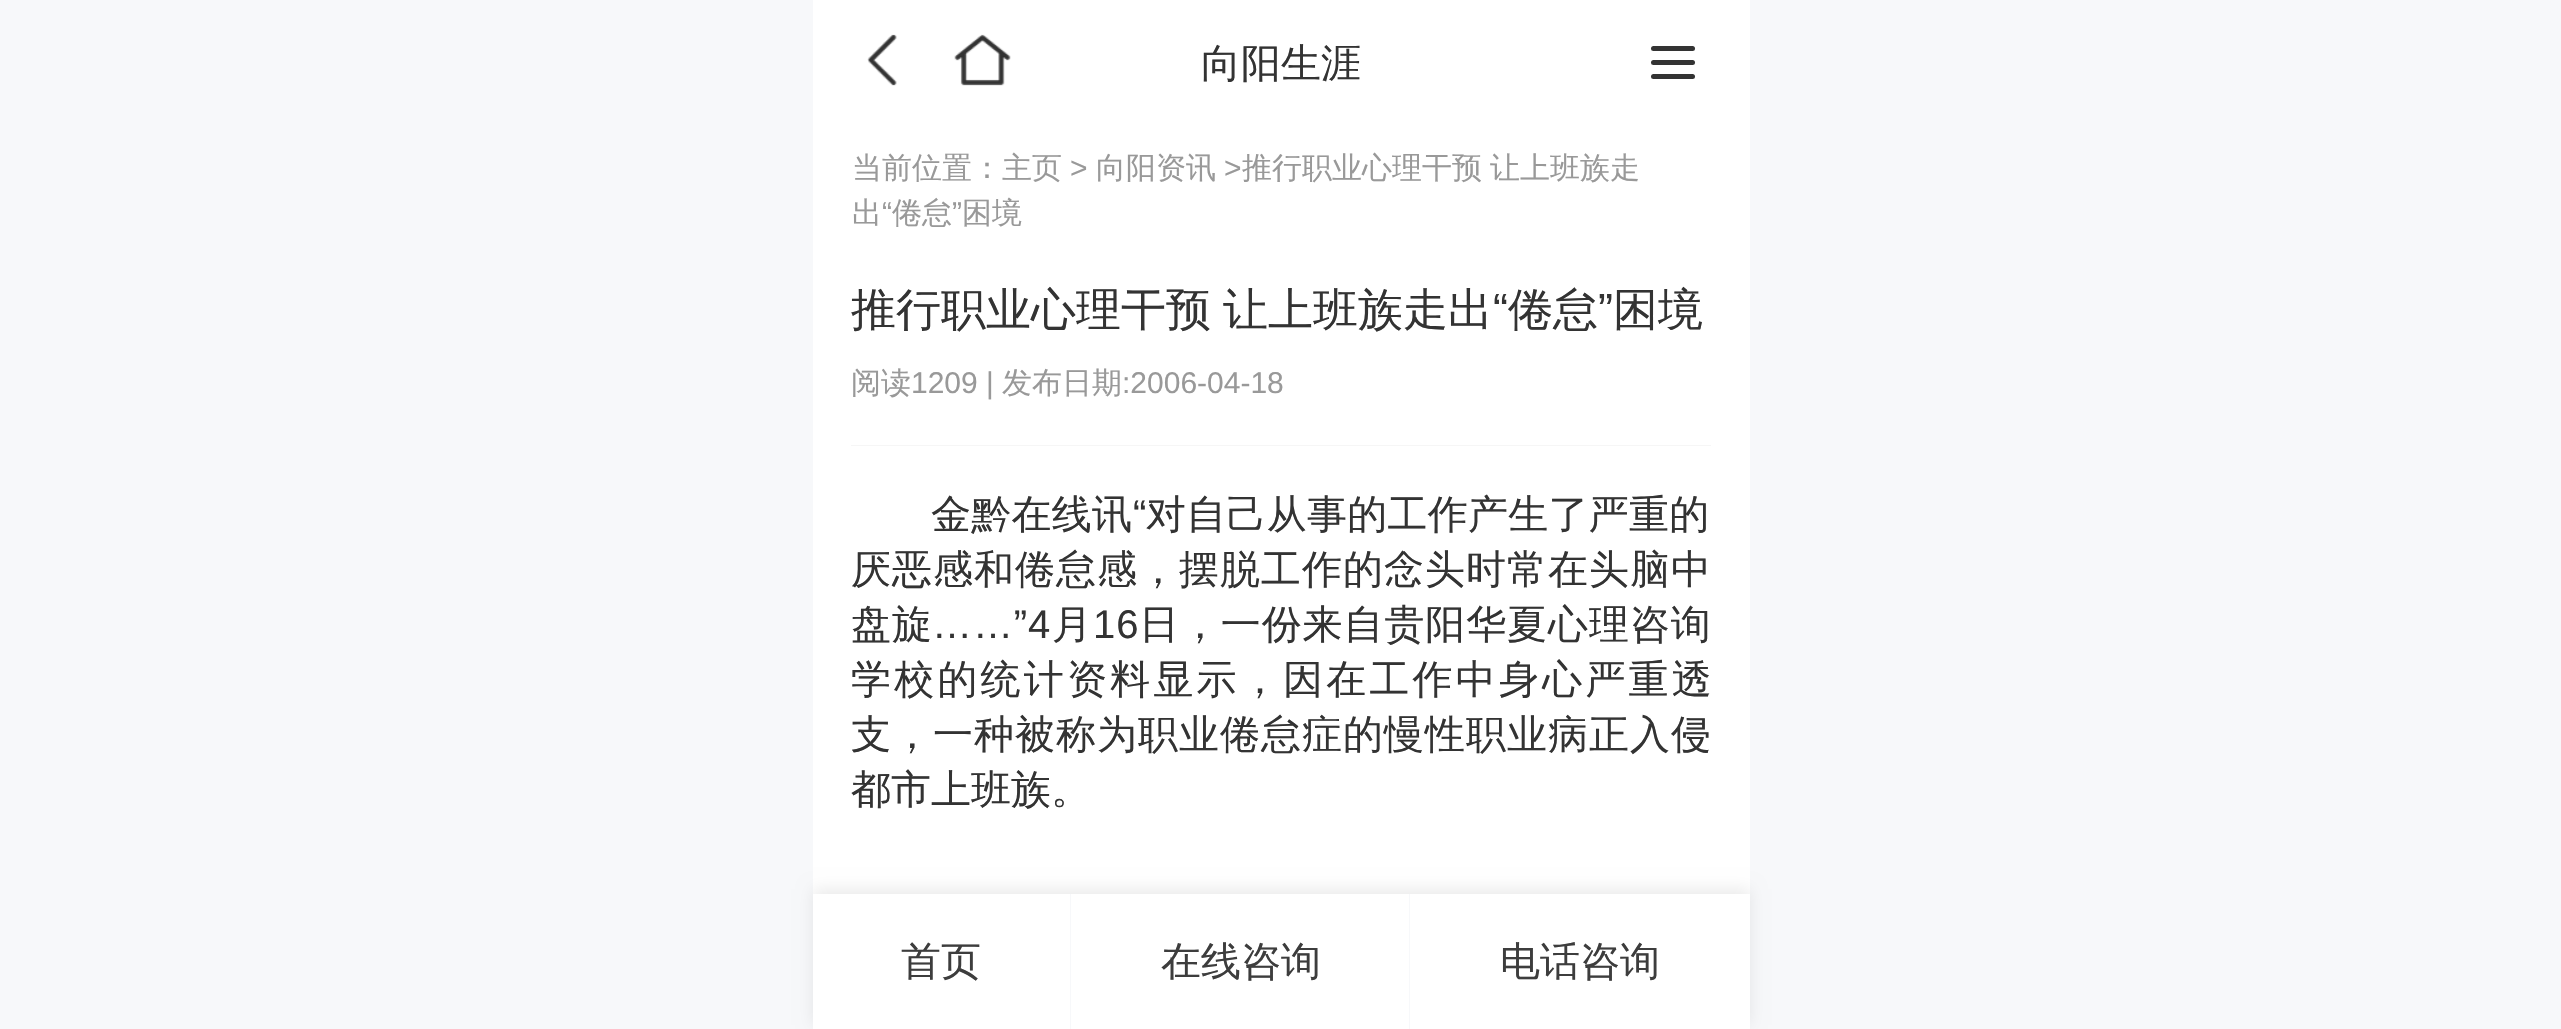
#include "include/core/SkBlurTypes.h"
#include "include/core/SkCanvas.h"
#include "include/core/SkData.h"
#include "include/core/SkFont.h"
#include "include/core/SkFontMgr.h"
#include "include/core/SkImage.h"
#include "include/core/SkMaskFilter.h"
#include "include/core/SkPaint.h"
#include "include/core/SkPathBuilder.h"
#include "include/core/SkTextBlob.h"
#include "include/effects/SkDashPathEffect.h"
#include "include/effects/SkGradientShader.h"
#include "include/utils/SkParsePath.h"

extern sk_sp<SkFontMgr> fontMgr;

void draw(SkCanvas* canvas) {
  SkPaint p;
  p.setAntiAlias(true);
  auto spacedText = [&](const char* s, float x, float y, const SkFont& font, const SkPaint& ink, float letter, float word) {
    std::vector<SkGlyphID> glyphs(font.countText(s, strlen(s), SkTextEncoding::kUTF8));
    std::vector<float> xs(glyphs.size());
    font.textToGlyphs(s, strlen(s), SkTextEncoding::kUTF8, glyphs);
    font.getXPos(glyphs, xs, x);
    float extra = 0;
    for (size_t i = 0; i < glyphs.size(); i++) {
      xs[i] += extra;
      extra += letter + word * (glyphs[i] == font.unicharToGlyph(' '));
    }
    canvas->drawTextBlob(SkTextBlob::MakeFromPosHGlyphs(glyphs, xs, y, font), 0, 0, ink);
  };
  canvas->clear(SkColorSetRGB(247, 248, 250));
  p.setColor(SK_ColorWHITE);
  canvas->drawRect(SkRect::MakeLTRB(813, 0, 1750, 894), p);
  canvas->drawImageRect(SkImages::DeferredFromEncodedData(SkData::MakeFromFileName("images/1.png")), SkRect::MakeLTRB(867, 34, 897, 86), SkSamplingOptions());
  canvas->drawImageRect(SkImages::DeferredFromEncodedData(SkData::MakeFromFileName("images/2.png")), SkRect::MakeLTRB(954, 34, 1011, 86), SkSamplingOptions());
  p.setColor(SkColorSetRGB(51, 51, 51));
  canvas->drawRoundRect(SkRect::MakeLTRB(1651, 46, 1695, 51), 2.5f, 2.5f, p);
  canvas->drawRoundRect(SkRect::MakeLTRB(1651, 60, 1695, 65), 2.5f, 2.5f, p);
  canvas->drawRoundRect(SkRect::MakeLTRB(1651, 74, 1695, 79), 2.5f, 2.5f, p);
  p.setColor(SkColorSetRGB(246, 246, 246));
  canvas->drawRect(SkRect::MakeLTRB(851, 445, 1711, 446), p);
  p.setColor(SkColorSetARGB(20, 0, 0, 0));
  p.setMaskFilter(SkMaskFilter::MakeBlur(kNormal_SkBlurStyle, 7.5f));
  canvas->drawRect(SkRect::MakeLTRB(813, 889, 1750, 1025), p);
  p.setMaskFilter(nullptr);
  p.setColor(SK_ColorWHITE);
  canvas->drawRect(SkRect::MakeLTRB(813, 894, 1750, 1029), p);
  p.setColor(SkColorSetRGB(247, 248, 250));
  canvas->drawRect(SkRect::MakeLTRB(1070, 894, 1071, 1029), p);
  canvas->drawRect(SkRect::MakeLTRB(1409, 894, 1410, 1029), p);
  SkFont font1(fontMgr->matchFamilyStyle("WenQuanYi Zen Hei", SkFontStyle(500, SkFontStyle::kNormal_Width, SkFontStyle::kUpright_Slant)), 40);
  font1.setSubpixel(true);
  p.setColor(SkColorSetRGB(51, 51, 51));
  canvas->drawString("向阳生涯", 1201, 77, font1, p);
  SkFont font2(fontMgr->matchFamilyStyle("WenQuanYi Zen Hei", SkFontStyle(500, SkFontStyle::kNormal_Width, SkFontStyle::kUpright_Slant)), 30);
  font2.setSubpixel(true);
  p.setColor(SkColorSetRGB(153, 153, 153));
  canvas->drawString("当前位置：主页", 852, 178, font2, p);
  SkFont font3(fontMgr->matchFamilyStyle("Liberation Sans", SkFontStyle::Normal()), 30);
  font3.setSubpixel(true);
  canvas->drawString(">", 1070, 178, font3, p);
  canvas->drawString("向阳资讯", 1096, 178, font2, p);
  canvas->drawString(">", 1224, 178, font3, p);
  canvas->drawString("推行职业心理干预", 1242, 178, font2, p);
  canvas->drawString("让上班族走", 1490, 178, font2, p);
  canvas->drawString("出", 852, 223, font2, p);
  canvas->drawString("“", 882, 223, font3, p);
  canvas->drawString("倦怠", 892, 223, font2, p);
  canvas->drawString("”", 952, 223, font3, p);
  canvas->drawString("困境", 962, 223, font2, p);
  SkFont font4(fontMgr->matchFamilyStyle("WenQuanYi Zen Hei", SkFontStyle(500, SkFontStyle::kNormal_Width, SkFontStyle::kUpright_Slant)), 45);
  font4.setSubpixel(true);
  p.setColor(SkColorSetRGB(51, 51, 51));
  canvas->drawString("推行职业心理干预", 851, 325, font4, p);
  canvas->drawString("让上班族走出", 1223, 325, font4, p);
  SkFont font5(fontMgr->matchFamilyStyle("Liberation Sans", SkFontStyle::Normal()), 45);
  font5.setSubpixel(true);
  canvas->drawString("“", 1493, 325, font5, p);
  canvas->drawString("倦怠", 1508, 325, font4, p);
  canvas->drawString("”", 1598, 325, font5, p);
  canvas->drawString("困境", 1613, 325, font4, p);
  p.setColor(SkColorSetRGB(153, 153, 153));
  canvas->drawString("阅读", 851, 393, font2, p);
  canvas->drawString("1209 |", 911, 393, font3, p);
  canvas->drawString("发布日期", 1002, 393, font2, p);
  canvas->drawString(":2006-04-18", 1122, 393, font3, p);
  p.setColor(SkColorSetRGB(51, 51, 51));
  spacedText("金黔在线讯", 931, 528, font1, p, 0.25f, 0);
  SkFont font6(fontMgr->matchFamilyStyle("Liberation Sans", SkFontStyle::Normal()), 40);
  font6.setSubpixel(true);
  spacedText("“", 1133, 528, font6, p, 0.25f, 0);
  spacedText("对自己从事的工作产生了严重的", 1146, 528, font1, p, 0.25f, 0);
  spacedText("厌恶感和倦怠感，摆脱工作的念头时常在头脑中", 851, 583, font1, p, 1, 0);
  spacedText("盘旋", 851, 638, font1, p, 0.9f, 0);
  spacedText("……”4", 932, 638, font6, p, 0.9f, 0);
  spacedText("月", 1052, 638, font1, p, 0.9f, 0);
  spacedText("16", 1093, 638, font6, p, 0.9f, 0);
  spacedText("日，一份来自贵阳华夏心理咨询", 1139, 638, font1, p, 0.9f, 0);
  spacedText("学校的统计资料显示，因在工作中身心严重透", 851, 693, font1, p, 3.2f, 0);
  spacedText("支，一种被称为职业倦怠症的慢性职业病正入侵", 851, 748, font1, p, 1, 0);
  canvas->drawString("都市上班族。", 851, 803, font1, p);
  p.setColor(SkColorSetRGB(61, 61, 61));
  canvas->drawString("首页", 901, 975, font1, p);
  canvas->drawString("在线咨询", 1161, 975, font1, p);
  canvas->drawString("电话咨询", 1500, 975, font1, p);
}
